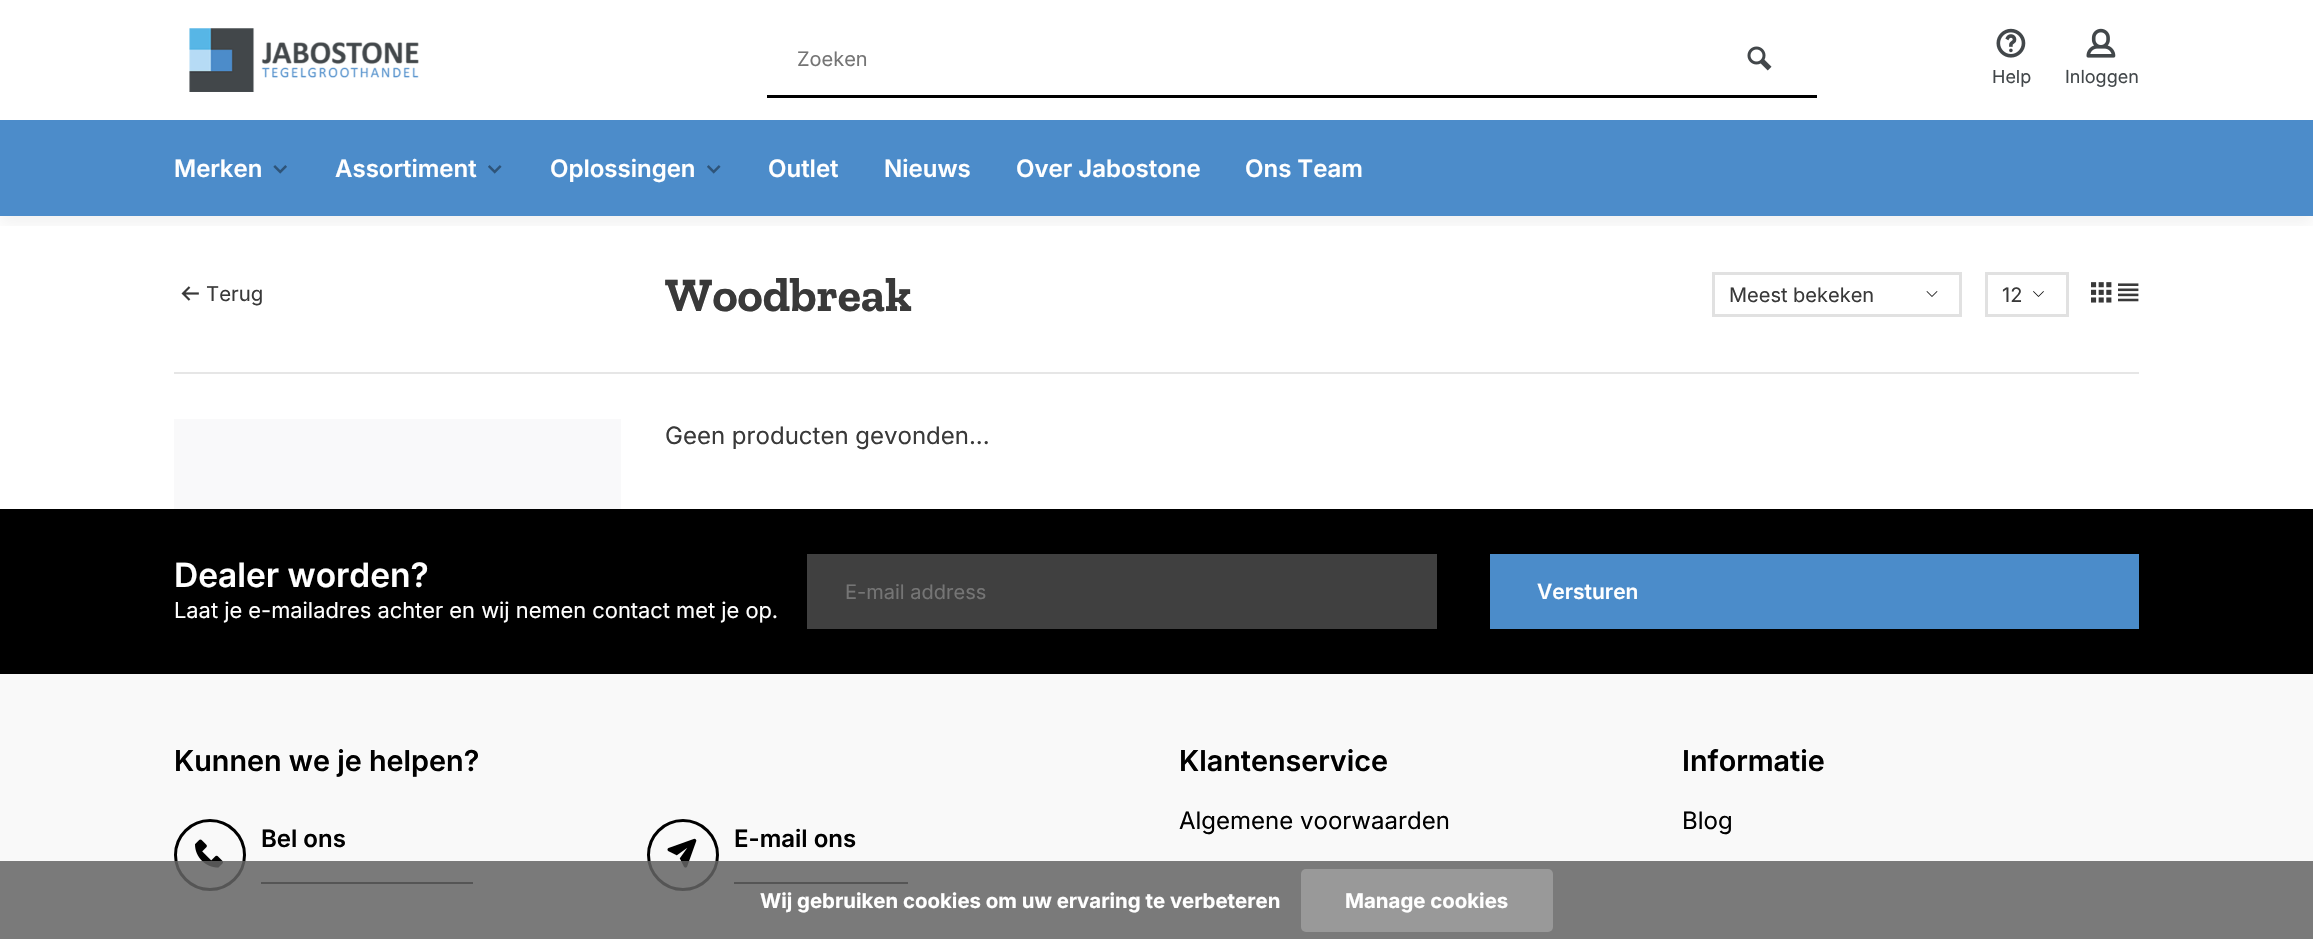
#include "include/core/SkBlurTypes.h"
#include "include/core/SkCanvas.h"
#include "include/core/SkData.h"
#include "include/core/SkFont.h"
#include "include/core/SkFontMgr.h"
#include "include/core/SkImage.h"
#include "include/core/SkMaskFilter.h"
#include "include/core/SkPaint.h"
#include "include/core/SkPathBuilder.h"
#include "include/core/SkTextBlob.h"
#include "include/effects/SkDashPathEffect.h"
#include "include/effects/SkGradientShader.h"
#include "include/utils/SkParsePath.h"

extern sk_sp<SkFontMgr> fontMgr;

void draw(SkCanvas* canvas) {
  SkPaint p;
  p.setAntiAlias(true);
  canvas->clear(SK_ColorWHITE);
  canvas->save();
  canvas->clipRect(SkRect::MakeLTRB(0, 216, 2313, 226));
  p.setColor(SkColorSetARGB(13, 0, 0, 0));
  p.setMaskFilter(SkMaskFilter::MakeBlur(kNormal_SkBlurStyle, 7.5f));
  canvas->drawRect(SkRect::MakeLTRB(0, 8, 2313, 224), p);
  p.setMaskFilter(nullptr);
  canvas->restore();
  canvas->drawImageRect(SkImages::DeferredFromEncodedData(SkData::MakeFromFileName("images/1.png")), SkRect::MakeLTRB(189, 28, 419, 92), SkSamplingOptions());
  p.setColor(SK_ColorBLACK);
  canvas->drawRect(SkRect::MakeLTRB(767, 95, 1817, 98), p);
  canvas->drawImageRect(SkImages::DeferredFromEncodedData(SkData::MakeFromFileName("images/2.png")), SkRect::MakeLTRB(1747, 46, 1772, 71), SkSamplingOptions());
  canvas->drawImageRect(SkImages::DeferredFromEncodedData(SkData::MakeFromFileName("images/3.png")), SkRect::MakeLTRB(1996, 28, 2026, 58), SkSamplingOptions());
  canvas->drawImageRect(SkImages::DeferredFromEncodedData(SkData::MakeFromFileName("images/4.png")), SkRect::MakeLTRB(2086, 28, 2116, 58), SkSamplingOptions());
  p.setColor(SkColorSetRGB(76, 140, 202));
  canvas->drawRect(SkRect::MakeLTRB(0, 120, 2313, 216), p);
  canvas->drawImageRect(SkImages::DeferredFromEncodedData(SkData::MakeFromFileName("images/5.png")), SkRect::MakeLTRB(273, 165, 287, 174), SkSamplingOptions());
  canvas->drawImageRect(SkImages::DeferredFromEncodedData(SkData::MakeFromFileName("images/6.png")), SkRect::MakeLTRB(488, 165, 502, 174), SkSamplingOptions());
  canvas->drawImageRect(SkImages::DeferredFromEncodedData(SkData::MakeFromFileName("images/6.png")), SkRect::MakeLTRB(707, 165, 721, 174), SkSamplingOptions());
  p.setColor(SkColorSetRGB(230, 230, 230));
  canvas->drawRect(SkRect::MakeLTRB(174, 372, 2139, 374), p);
  canvas->drawImageRect(SkImages::DeferredFromEncodedData(SkData::MakeFromFileName("images/7.png")), SkRect::MakeLTRB(181, 286, 199, 301), SkSamplingOptions());
  canvas->drawImageRect(SkImages::DeferredFromEncodedData(SkData::MakeFromFileName("images/8.png")), SkRect::MakeLTRB(1926, 291, 1938, 297), SkSamplingOptions());
  p.setStyle(SkPaint::kStroke_Style);
  p.setStrokeWidth(3);
  p.setColor(SkColorSetRGB(225, 225, 225));
  canvas->drawRect(SkRect::MakeLTRB(1713.5f, 273.5f, 1960.5f, 315.5f), p);
  canvas->drawImageRect(SkImages::DeferredFromEncodedData(SkData::MakeFromFileName("images/9.png")), SkRect::MakeLTRB(2033, 291, 2044, 297), SkSamplingOptions());
  canvas->drawRect(SkRect::MakeLTRB(1986.5f, 273.5f, 2067.5f, 315.5f), p);
  canvas->drawImageRect(SkImages::DeferredFromEncodedData(SkData::MakeFromFileName("images/10.png")), SkRect::MakeLTRB(2091, 282, 2112, 303), SkSamplingOptions());
  canvas->drawImageRect(SkImages::DeferredFromEncodedData(SkData::MakeFromFileName("images/11.png")), SkRect::MakeLTRB(2118, 283, 2139, 302), SkSamplingOptions());
  p.setStyle(SkPaint::kFill_Style);
  p.setColor(SkColorSetRGB(249, 249, 250));
  canvas->drawRect(SkRect::MakeLTRB(174, 419, 621, 509), p);
  p.setColor(SK_ColorBLACK);
  canvas->drawRect(SkRect::MakeLTRB(0, 509, 2313, 674), p);
  p.setColor(SkColorSetRGB(64, 64, 64));
  canvas->drawRect(SkRect::MakeLTRB(807, 554, 1437, 629), p);
  p.setColor(SkColorSetRGB(75, 140, 202));
  canvas->drawRect(SkRect::MakeLTRB(1490, 554, 2139, 629), p);
  p.setColor(SkColorSetRGB(249, 249, 249));
  canvas->drawRect(SkRect::MakeLTRB(0, 674, 2313, 939), p);
  p.setStyle(SkPaint::kStroke_Style);
  p.setColor(SK_ColorBLACK);
  canvas->drawCircle(210, 855, 34.5f, p);
  canvas->drawImageRect(SkImages::DeferredFromEncodedData(SkData::MakeFromFileName("images/12.png")), SkRect::MakeLTRB(195, 839, 223, 868), SkSamplingOptions());
  p.setStyle(SkPaint::kFill_Style);
  canvas->drawRect(SkRect::MakeLTRB(261, 882, 473, 884), p);
  p.setStyle(SkPaint::kStroke_Style);
  canvas->drawCircle(683, 855, 34.5f, p);
  canvas->drawImageRect(SkImages::DeferredFromEncodedData(SkData::MakeFromFileName("images/13.png")), SkRect::MakeLTRB(667, 838, 697, 868), SkSamplingOptions());
  p.setStyle(SkPaint::kFill_Style);
  canvas->drawRect(SkRect::MakeLTRB(734, 882, 908, 884), p);
  p.setColor(SkColorSetARGB(217, 100, 100, 100));
  canvas->drawRect(SkRect::MakeLTRB(0, 861, 2313, 939), p);
  p.setColor(SkColorSetRGB(153, 153, 153));
  canvas->drawRoundRect(SkRect::MakeLTRB(1301, 869, 1553, 932), 5, 5, p);
  SkFont font1(fontMgr->matchFamilyStyle("Inter", SkFontStyle::Normal()), 20);
  font1.setSubpixel(true);
  p.setColor(SkColorSetRGB(117, 117, 117));
  canvas->drawString("Zoeken", 797, 66, font1, p);
  SkFont font2(fontMgr->matchFamilyStyle("Inter", SkFontStyle::Normal()), 18);
  font2.setSubpixel(true);
  p.setColor(SkColorSetRGB(66, 71, 74));
  canvas->drawString("Help", 1992, 83, font2, p);
  canvas->drawString("Inloggen", 2065, 83, font2, p);
  SkFont font3(fontMgr->matchFamilyStyle("Inter", SkFontStyle(600, SkFontStyle::kNormal_Width, SkFontStyle::kUpright_Slant)), 24);
  font3.setSubpixel(true);
  p.setColor(SK_ColorWHITE);
  canvas->drawString("Merken", 174, 177, font3, p);
  canvas->drawString("Assortiment", 335, 177, font3, p);
  canvas->drawString("Oplossingen", 550, 177, font3, p);
  canvas->drawString("Outlet", 768, 177, font3, p);
  canvas->drawString("Nieuws", 884, 177, font3, p);
  canvas->drawString("Over Jabostone", 1016, 177, font3, p);
  canvas->drawString("Ons Team", 1245, 177, font3, p);
  SkFont font4(fontMgr->matchFamilyStyle("Inter", SkFontStyle::Normal()), 20.4f);
  font4.setSubpixel(true);
  p.setColor(SkColorSetRGB(57, 57, 57));
  canvas->drawString("Terug", 206, 301, font4, p);
  SkFont font5(fontMgr->matchFamilyStyle("Zilla Slab", SkFontStyle::Bold()), 48);
  font5.setSubpixel(true);
  canvas->drawString("Woodbreak", 665, 311, font5, p);
  canvas->drawString("Meest bekeken", 1729, 302, font1, p);
  canvas->drawString("12", 2002, 302, font1, p);
  SkFont font6(fontMgr->matchFamilyStyle("Inter", SkFontStyle::Normal()), 24);
  font6.setSubpixel(true);
  canvas->drawString("Geen producten gevonden...", 665, 444, font6, p);
  SkFont font7(fontMgr->matchFamilyStyle("Inter", SkFontStyle(600, SkFontStyle::kNormal_Width, SkFontStyle::kUpright_Slant)), 33.5f);
  font7.setSubpixel(true);
  p.setColor(SK_ColorWHITE);
  canvas->drawString("Dealer worden?", 174, 587, font7, p);
  SkFont font8(fontMgr->matchFamilyStyle("Inter", SkFontStyle::Normal()), 21.85f);
  font8.setSubpixel(true);
  canvas->drawString("Laat je e-mailadres achter en wij nemen contact met je op.", 174, 618, font8, p);
  p.setColor(SkColorSetRGB(117, 117, 117));
  canvas->drawString("E-mail address", 845, 599, font1, p);
  SkFont font9(fontMgr->matchFamilyStyle("Inter", SkFontStyle(600, SkFontStyle::kNormal_Width, SkFontStyle::kUpright_Slant)), 21);
  font9.setSubpixel(true);
  p.setColor(SK_ColorWHITE);
  canvas->drawString("Versturen", 1537, 599, font9, p);
  SkFont font10(fontMgr->matchFamilyStyle("Inter", SkFontStyle(600, SkFontStyle::kNormal_Width, SkFontStyle::kUpright_Slant)), 28.75f);
  font10.setSubpixel(true);
  p.setColor(SK_ColorBLACK);
  canvas->drawString("Kunnen we je helpen?", 174, 771, font10, p);
  canvas->drawString("Bel ons", 261, 847, font3, p);
  canvas->drawString("E-mail ons", 734, 847, font3, p);
  canvas->drawString("Klantenservice", 1179, 771, font10, p);
  canvas->drawString("Algemene voorwaarden", 1179, 829, font6, p);
  canvas->drawString("Informatie", 1682, 771, font10, p);
  canvas->drawString("Blog", 1682, 829, font6, p);
  SkFont font11(fontMgr->matchFamilyStyle("Inter", SkFontStyle::Bold()), 20.4f);
  font11.setSubpixel(true);
  p.setColor(SK_ColorWHITE);
  canvas->drawString("Wij gebruiken cookies om uw ervaring te verbeteren", 760, 908, font11, p);
  canvas->drawString("Manage cookies", 1345, 908, font11, p);
}
